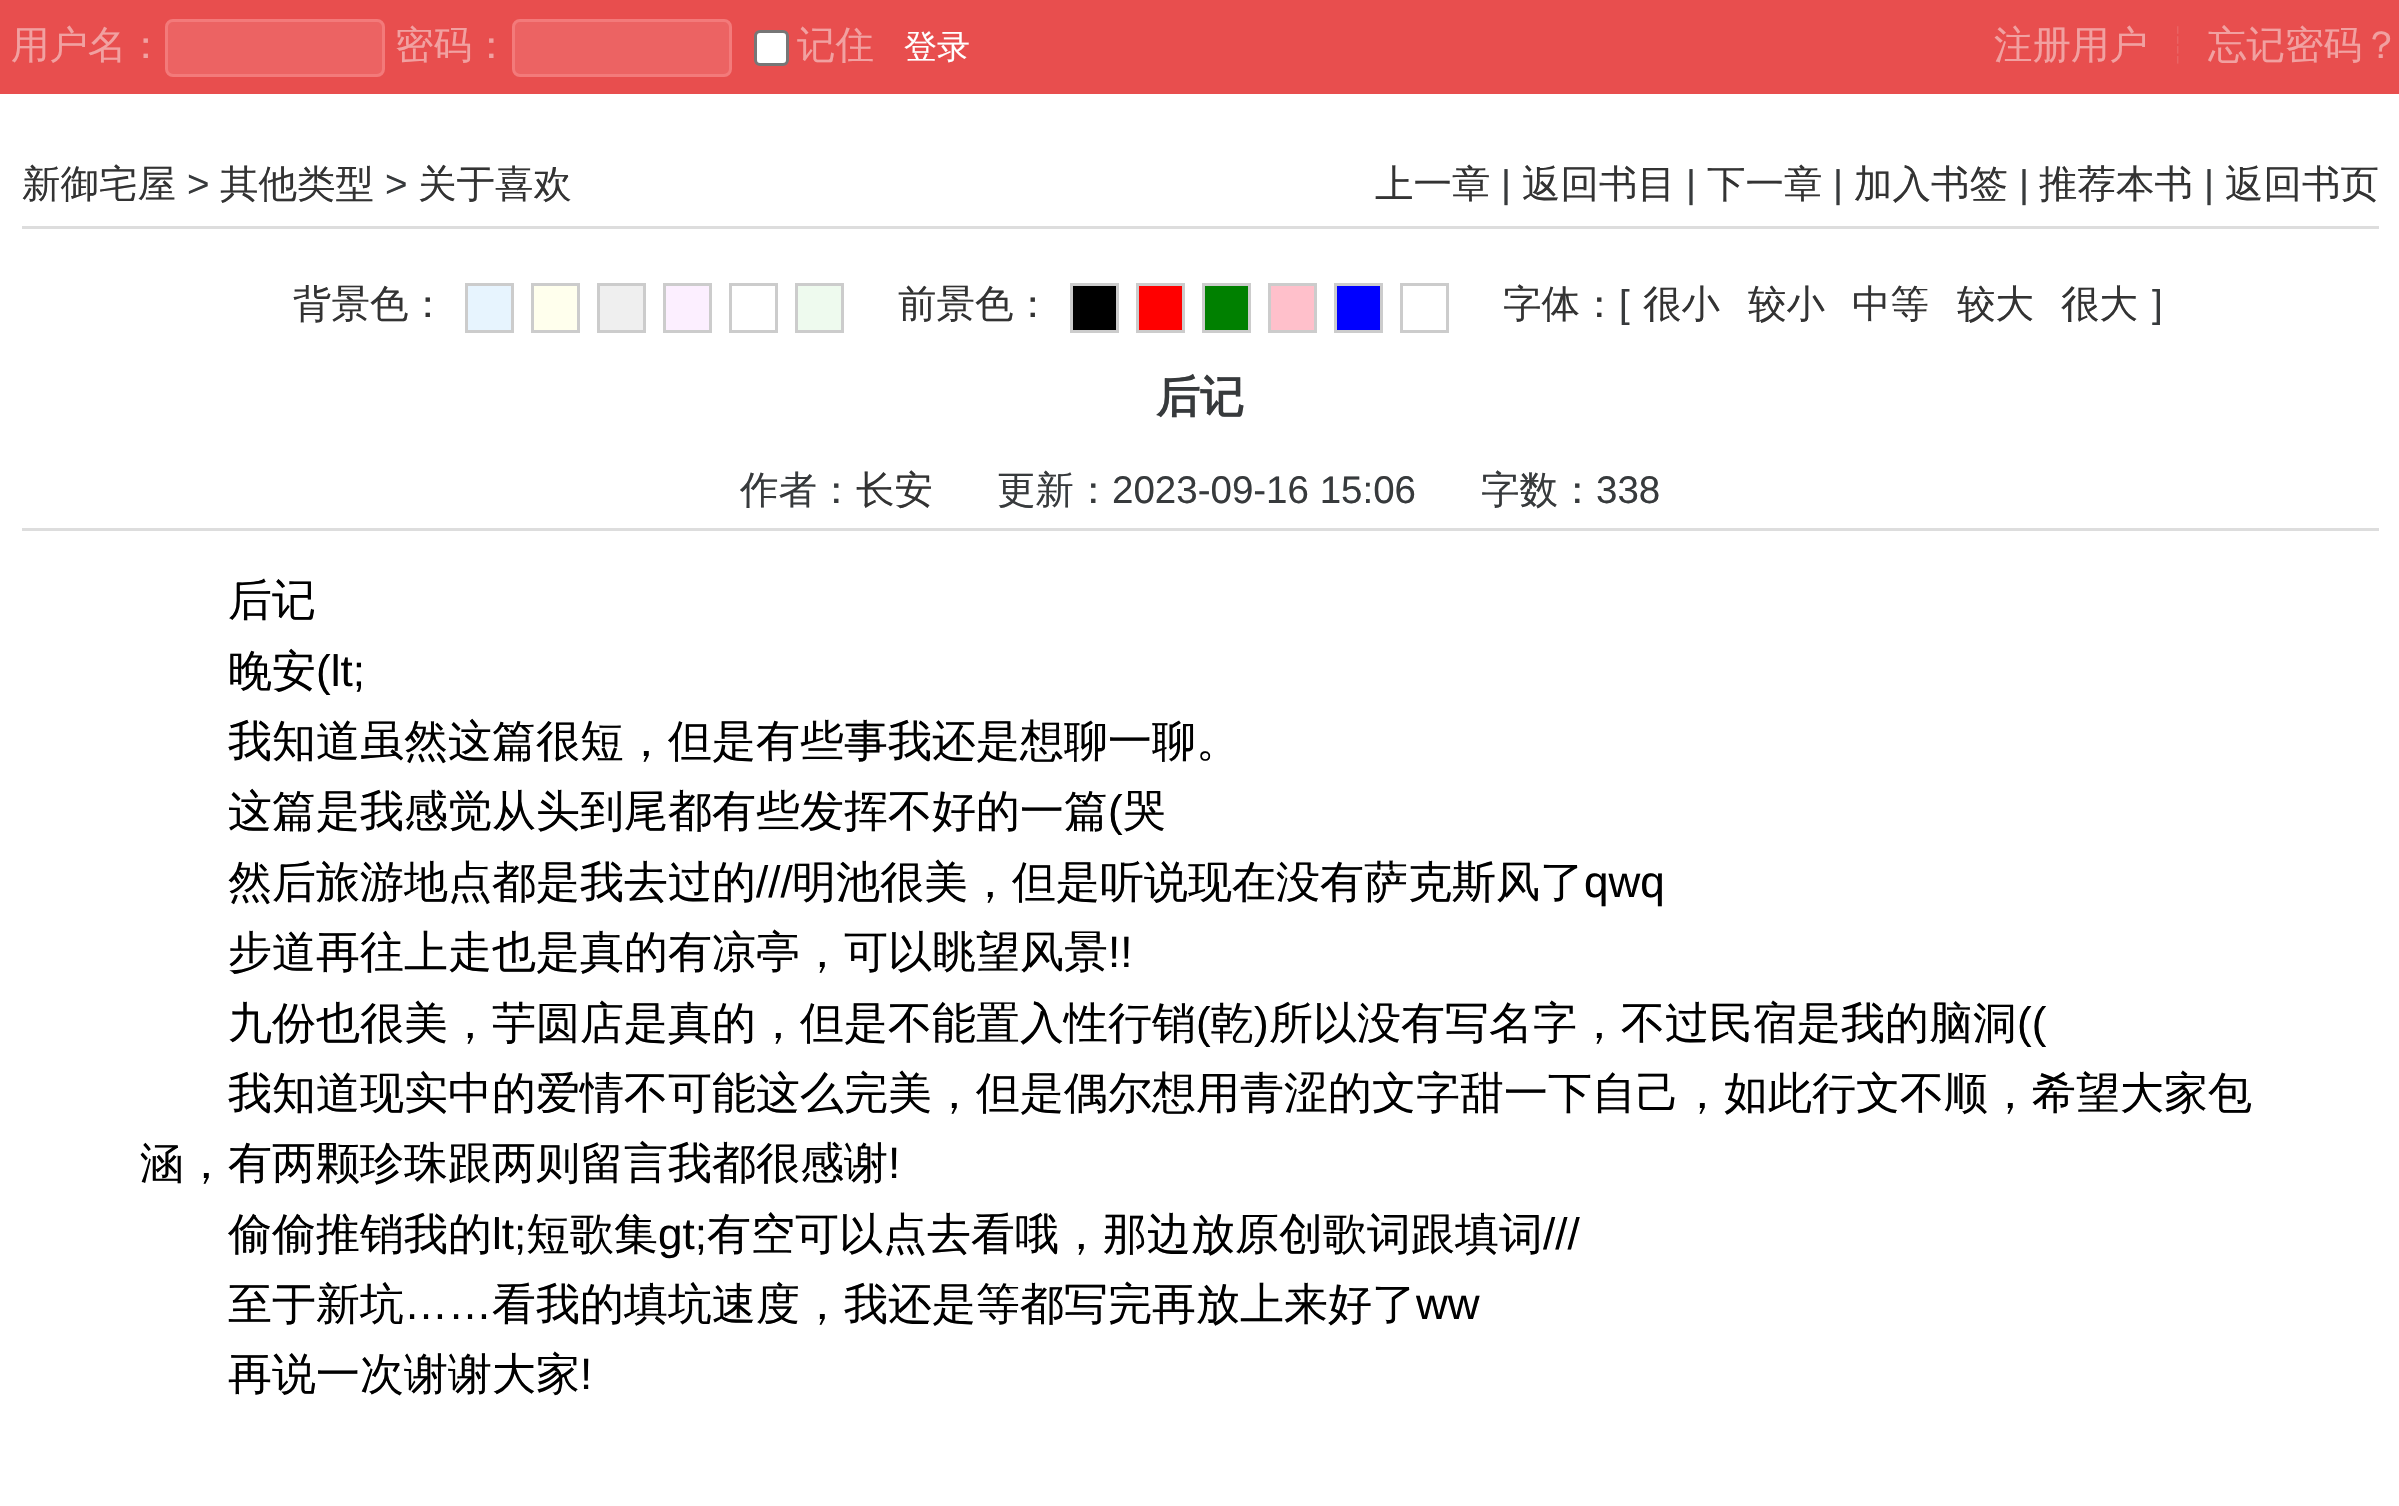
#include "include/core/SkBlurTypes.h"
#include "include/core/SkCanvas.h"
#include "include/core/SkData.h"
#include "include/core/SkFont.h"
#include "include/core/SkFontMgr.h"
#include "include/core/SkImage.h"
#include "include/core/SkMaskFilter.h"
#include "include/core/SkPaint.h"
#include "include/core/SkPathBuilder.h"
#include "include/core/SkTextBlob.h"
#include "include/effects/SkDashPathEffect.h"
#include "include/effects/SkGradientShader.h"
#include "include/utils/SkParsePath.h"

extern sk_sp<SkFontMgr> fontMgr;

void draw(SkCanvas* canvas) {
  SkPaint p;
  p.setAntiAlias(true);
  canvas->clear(SK_ColorWHITE);
  p.setColor(SkColorSetRGB(232, 78, 78));
  canvas->drawRect(SkRect::MakeLTRB(0, 0, 2399, 94), p);
  p.setColor(SkColorSetRGB(236, 99, 99));
  canvas->drawRoundRect(SkRect::MakeLTRB(166.5f, 20.5f, 383.5f, 75.5f), 6.5f, 6.5f, p);
  p.setStyle(SkPaint::kStroke_Style);
  p.setStrokeWidth(3);
  p.setColor(SkColorSetRGB(243, 122, 122));
  canvas->drawRoundRect(SkRect::MakeLTRB(166.5f, 20.5f, 383.5f, 75.5f), 6.5f, 6.5f, p);
  p.setStyle(SkPaint::kFill_Style);
  p.setColor(SkColorSetRGB(236, 99, 99));
  canvas->drawRoundRect(SkRect::MakeLTRB(513.5f, 20.5f, 730.5f, 75.5f), 6.5f, 6.5f, p);
  p.setStyle(SkPaint::kStroke_Style);
  p.setColor(SkColorSetRGB(243, 122, 122));
  canvas->drawRoundRect(SkRect::MakeLTRB(513.5f, 20.5f, 730.5f, 75.5f), 6.5f, 6.5f, p);
  p.setStyle(SkPaint::kFill_Style);
  p.setColor(SK_ColorWHITE);
  canvas->drawRoundRect(SkRect::MakeLTRB(755.5f, 31.5f, 787.5f, 64.5f), 4.5f, 4.5f, p);
  p.setStyle(SkPaint::kStroke_Style);
  p.setColor(SkColorSetRGB(118, 118, 118));
  canvas->drawRoundRect(SkRect::MakeLTRB(755.5f, 31.5f, 787.5f, 64.5f), 4.5f, 4.5f, p);
  p.setStyle(SkPaint::kFill_Style);
  p.setColor(SkColorSetRGB(221, 221, 221));
  canvas->drawRect(SkRect::MakeLTRB(22, 226, 2379, 229), p);
  p.setColor(SkColorSetRGB(231, 244, 254));
  canvas->drawRect(SkRect::MakeLTRB(466.5f, 284.5f, 512.5f, 331.5f), p);
  p.setStyle(SkPaint::kStroke_Style);
  p.setColor(SkColorSetRGB(204, 204, 204));
  canvas->drawRect(SkRect::MakeLTRB(466.5f, 284.5f, 512.5f, 331.5f), p);
  p.setStyle(SkPaint::kFill_Style);
  p.setColor(SkColorSetRGB(255, 255, 237));
  canvas->drawRect(SkRect::MakeLTRB(532.5f, 284.5f, 578.5f, 331.5f), p);
  p.setStyle(SkPaint::kStroke_Style);
  p.setColor(SkColorSetRGB(204, 204, 204));
  canvas->drawRect(SkRect::MakeLTRB(532.5f, 284.5f, 578.5f, 331.5f), p);
  p.setStyle(SkPaint::kFill_Style);
  p.setColor(SkColorSetRGB(239, 239, 239));
  canvas->drawRect(SkRect::MakeLTRB(598.5f, 284.5f, 644.5f, 331.5f), p);
  p.setStyle(SkPaint::kStroke_Style);
  p.setColor(SkColorSetRGB(204, 204, 204));
  canvas->drawRect(SkRect::MakeLTRB(598.5f, 284.5f, 644.5f, 331.5f), p);
  p.setStyle(SkPaint::kFill_Style);
  p.setColor(SkColorSetRGB(252, 239, 255));
  canvas->drawRect(SkRect::MakeLTRB(664.5f, 284.5f, 710.5f, 331.5f), p);
  p.setStyle(SkPaint::kStroke_Style);
  p.setColor(SkColorSetRGB(204, 204, 204));
  canvas->drawRect(SkRect::MakeLTRB(664.5f, 284.5f, 710.5f, 331.5f), p);
  canvas->drawRect(SkRect::MakeLTRB(730.5f, 284.5f, 776.5f, 331.5f), p);
  p.setStyle(SkPaint::kFill_Style);
  p.setColor(SkColorSetRGB(238, 250, 238));
  canvas->drawRect(SkRect::MakeLTRB(796.5f, 284.5f, 842.5f, 331.5f), p);
  p.setStyle(SkPaint::kStroke_Style);
  p.setColor(SkColorSetRGB(204, 204, 204));
  canvas->drawRect(SkRect::MakeLTRB(796.5f, 284.5f, 842.5f, 331.5f), p);
  p.setStyle(SkPaint::kFill_Style);
  p.setColor(SK_ColorBLACK);
  canvas->drawRect(SkRect::MakeLTRB(1071.5f, 284.5f, 1117.5f, 331.5f), p);
  p.setStyle(SkPaint::kStroke_Style);
  p.setColor(SkColorSetRGB(204, 204, 204));
  canvas->drawRect(SkRect::MakeLTRB(1071.5f, 284.5f, 1117.5f, 331.5f), p);
  p.setStyle(SkPaint::kFill_Style);
  p.setColor(SkColorSetRGB(255, 0, 0));
  canvas->drawRect(SkRect::MakeLTRB(1137.5f, 284.5f, 1183.5f, 331.5f), p);
  p.setStyle(SkPaint::kStroke_Style);
  p.setColor(SkColorSetRGB(204, 204, 204));
  canvas->drawRect(SkRect::MakeLTRB(1137.5f, 284.5f, 1183.5f, 331.5f), p);
  p.setStyle(SkPaint::kFill_Style);
  p.setColor(SkColorSetRGB(0, 128, 0));
  canvas->drawRect(SkRect::MakeLTRB(1203.5f, 284.5f, 1249.5f, 331.5f), p);
  p.setStyle(SkPaint::kStroke_Style);
  p.setColor(SkColorSetRGB(204, 204, 204));
  canvas->drawRect(SkRect::MakeLTRB(1203.5f, 284.5f, 1249.5f, 331.5f), p);
  p.setStyle(SkPaint::kFill_Style);
  p.setColor(SkColorSetRGB(255, 192, 203));
  canvas->drawRect(SkRect::MakeLTRB(1269.5f, 284.5f, 1315.5f, 331.5f), p);
  p.setStyle(SkPaint::kStroke_Style);
  p.setColor(SkColorSetRGB(204, 204, 204));
  canvas->drawRect(SkRect::MakeLTRB(1269.5f, 284.5f, 1315.5f, 331.5f), p);
  p.setStyle(SkPaint::kFill_Style);
  p.setColor(SkColorSetRGB(0, 0, 255));
  canvas->drawRect(SkRect::MakeLTRB(1335.5f, 284.5f, 1381.5f, 331.5f), p);
  p.setStyle(SkPaint::kStroke_Style);
  p.setColor(SkColorSetRGB(204, 204, 204));
  canvas->drawRect(SkRect::MakeLTRB(1335.5f, 284.5f, 1381.5f, 331.5f), p);
  canvas->drawRect(SkRect::MakeLTRB(1401.5f, 284.5f, 1447.5f, 331.5f), p);
  p.setStyle(SkPaint::kFill_Style);
  p.setColor(SkColorSetRGB(221, 221, 221));
  canvas->drawRect(SkRect::MakeLTRB(22, 528, 2379, 531), p);
  SkFont font1(fontMgr->matchFamilyStyle("WenQuanYi Zen Hei", SkFontStyle(500, SkFontStyle::kNormal_Width, SkFontStyle::kUpright_Slant)), 38.5f);
  font1.setSubpixel(true);
  p.setColor(SkColorSetRGB(241, 161, 161));
  canvas->drawString("用户名：", 11, 58, font1, p);
  canvas->drawString("密码：", 395, 58, font1, p);
  canvas->drawString("记住", 797, 58, font1, p);
  SkFont font2(fontMgr->matchFamilyStyle("WenQuanYi Zen Hei", SkFontStyle(500, SkFontStyle::kNormal_Width, SkFontStyle::kUpright_Slant)), 33);
  font2.setSubpixel(true);
  p.setColor(SK_ColorWHITE);
  canvas->drawString("登录", 904, 58, font2, p);
  p.setColor(SkColorSetRGB(241, 161, 161));
  canvas->drawString("注册用户", 1994, 58, font1, p);
  p.setColor(SkColorSetRGB(234, 101, 101));
  canvas->drawString("┊", 2159, 58, font1, p);
  p.setColor(SkColorSetRGB(241, 161, 161));
  canvas->drawString("忘记密码？", 2208, 58, font1, p);
  p.setColor(SkColorSetRGB(51, 51, 51));
  canvas->drawString("新御宅屋", 22, 197, font1, p);
  SkFont font3(fontMgr->matchFamilyStyle("Liberation Sans", SkFontStyle::Normal()), 38.5f);
  font3.setSubpixel(true);
  p.setColor(SkColorSetRGB(55, 58, 60));
  canvas->drawString(">", 187, 197, font3, p);
  p.setColor(SkColorSetRGB(51, 51, 51));
  canvas->drawString("其他类型", 220, 197, font1, p);
  p.setColor(SkColorSetRGB(55, 58, 60));
  canvas->drawString(">", 385, 197, font3, p);
  p.setColor(SkColorSetRGB(51, 51, 51));
  canvas->drawString("关于喜欢", 418, 197, font1, p);
  canvas->drawString("上一章", 1375, 197, font1, p);
  p.setColor(SkColorSetRGB(55, 58, 60));
  canvas->drawString("|", 1501, 197, font3, p);
  p.setColor(SkColorSetRGB(51, 51, 51));
  canvas->drawString("返回书目", 1522, 197, font1, p);
  p.setColor(SkColorSetRGB(55, 58, 60));
  canvas->drawString("|", 1686, 197, font3, p);
  p.setColor(SkColorSetRGB(51, 51, 51));
  canvas->drawString("下一章", 1707, 197, font1, p);
  p.setColor(SkColorSetRGB(55, 58, 60));
  canvas->drawString("|", 1833, 197, font3, p);
  p.setColor(SkColorSetRGB(51, 51, 51));
  canvas->drawString("加入书签", 1854, 197, font1, p);
  p.setColor(SkColorSetRGB(55, 58, 60));
  canvas->drawString("|", 2019, 197, font3, p);
  p.setColor(SkColorSetRGB(51, 51, 51));
  canvas->drawString("推荐本书", 2039, 197, font1, p);
  p.setColor(SkColorSetRGB(55, 58, 60));
  canvas->drawString("|", 2204, 197, font3, p);
  p.setColor(SkColorSetRGB(51, 51, 51));
  canvas->drawString("返回书页", 2225, 197, font1, p);
  canvas->drawString("背景色：", 293, 317, font1, p);
  canvas->drawString("前景色：", 898, 317, font1, p);
  canvas->drawString("字体：", 1503, 317, font1, p);
  p.setColor(SkColorSetRGB(55, 58, 60));
  canvas->drawString("[", 1619, 317, font3, p);
  p.setColor(SkColorSetRGB(51, 51, 51));
  canvas->drawString("很小", 1643, 317, font1, p);
  canvas->drawString("较小", 1748, 317, font1, p);
  canvas->drawString("中等", 1852, 317, font1, p);
  canvas->drawString("较大", 1957, 317, font1, p);
  canvas->drawString("很大", 2061, 317, font1, p);
  p.setColor(SkColorSetRGB(55, 58, 60));
  canvas->drawString("]", 2152, 317, font3, p);
  SkFont font4(fontMgr->matchFamilyStyle("WenQuanYi Zen Hei", SkFontStyle::Bold()), 44);
  font4.setSubpixel(true);
  canvas->drawString("后记", 1156, 412, font4, p);
  canvas->drawString("作者：", 740, 503, font1, p);
  p.setColor(SkColorSetRGB(51, 51, 51));
  canvas->drawString("长安", 856, 503, font1, p);
  p.setColor(SkColorSetRGB(55, 58, 60));
  canvas->drawString("更新：", 997, 503, font1, p);
  canvas->drawString("2023-09-16 15:06", 1112, 503, font3, p);
  canvas->drawString("字数：", 1481, 503, font1, p);
  canvas->drawString("338", 1596, 503, font3, p);
  SkFont font5(fontMgr->matchFamilyStyle("WenQuanYi Zen Hei", SkFontStyle(500, SkFontStyle::kNormal_Width, SkFontStyle::kUpright_Slant)), 44);
  font5.setSubpixel(true);
  p.setColor(SK_ColorBLACK);
  canvas->drawString("后记", 228, 615, font5, p);
  canvas->drawString("晚安", 228, 686, font5, p);
  SkFont font6(fontMgr->matchFamilyStyle("Liberation Sans", SkFontStyle::Normal()), 44);
  font6.setSubpixel(true);
  canvas->drawString("(lt;", 316, 686, font6, p);
  canvas->drawString("我知道虽然这篇很短，但是有些事我还是想聊一聊。", 228, 756, font5, p);
  canvas->drawString("这篇是我感觉从头到尾都有些发挥不好的一篇", 228, 826, font5, p);
  canvas->drawString("(", 1108, 826, font6, p);
  canvas->drawString("哭", 1122, 826, font5, p);
  canvas->drawString("然后旅游地点都是我去过的", 228, 897, font5, p);
  canvas->drawString("///", 756, 897, font6, p);
  canvas->drawString("明池很美，但是听说现在没有萨克斯风了", 792, 897, font5, p);
  canvas->drawString("qwq", 1584, 897, font6, p);
  canvas->drawString("步道再往上走也是真的有凉亭，可以眺望风景", 228, 967, font5, p);
  canvas->drawString("!!", 1108, 967, font6, p);
  canvas->drawString("九份也很美，芋圆店是真的，但是不能置入性行销", 228, 1038, font5, p);
  canvas->drawString("(", 1196, 1038, font6, p);
  canvas->drawString("乾", 1210, 1038, font5, p);
  canvas->drawString(")", 1254, 1038, font6, p);
  canvas->drawString("所以没有写名字，不过民宿是我的脑洞", 1269, 1038, font5, p);
  canvas->drawString("((", 2017, 1038, font6, p);
  canvas->drawString("我知道现实中的爱情不可能这么完美，但是偶尔想用青涩的文字甜一下自己，如此行文不顺，希望大家包", 228, 1108, font5, p);
  canvas->drawString("涵，有两颗珍珠跟两则留言我都很感谢", 140, 1178, font5, p);
  canvas->drawString("!", 888, 1178, font6, p);
  canvas->drawString("偷偷推销我的", 228, 1249, font5, p);
  canvas->drawString("lt;", 492, 1249, font6, p);
  canvas->drawString("短歌集", 526, 1249, font5, p);
  canvas->drawString("gt;", 658, 1249, font6, p);
  canvas->drawString("有空可以点去看哦，那边放原创歌词跟填词", 707, 1249, font5, p);
  canvas->drawString("///", 1543, 1249, font6, p);
  canvas->drawString("至于新坑", 228, 1319, font5, p);
  canvas->drawString("……", 404, 1319, font6, p);
  canvas->drawString("看我的填坑速度，我还是等都写完再放上来好了", 492, 1319, font5, p);
  canvas->drawString("ww", 1416, 1319, font6, p);
  canvas->drawString("再说一次谢谢大家", 228, 1389, font5, p);
  canvas->drawString("!", 580, 1389, font6, p);
}
